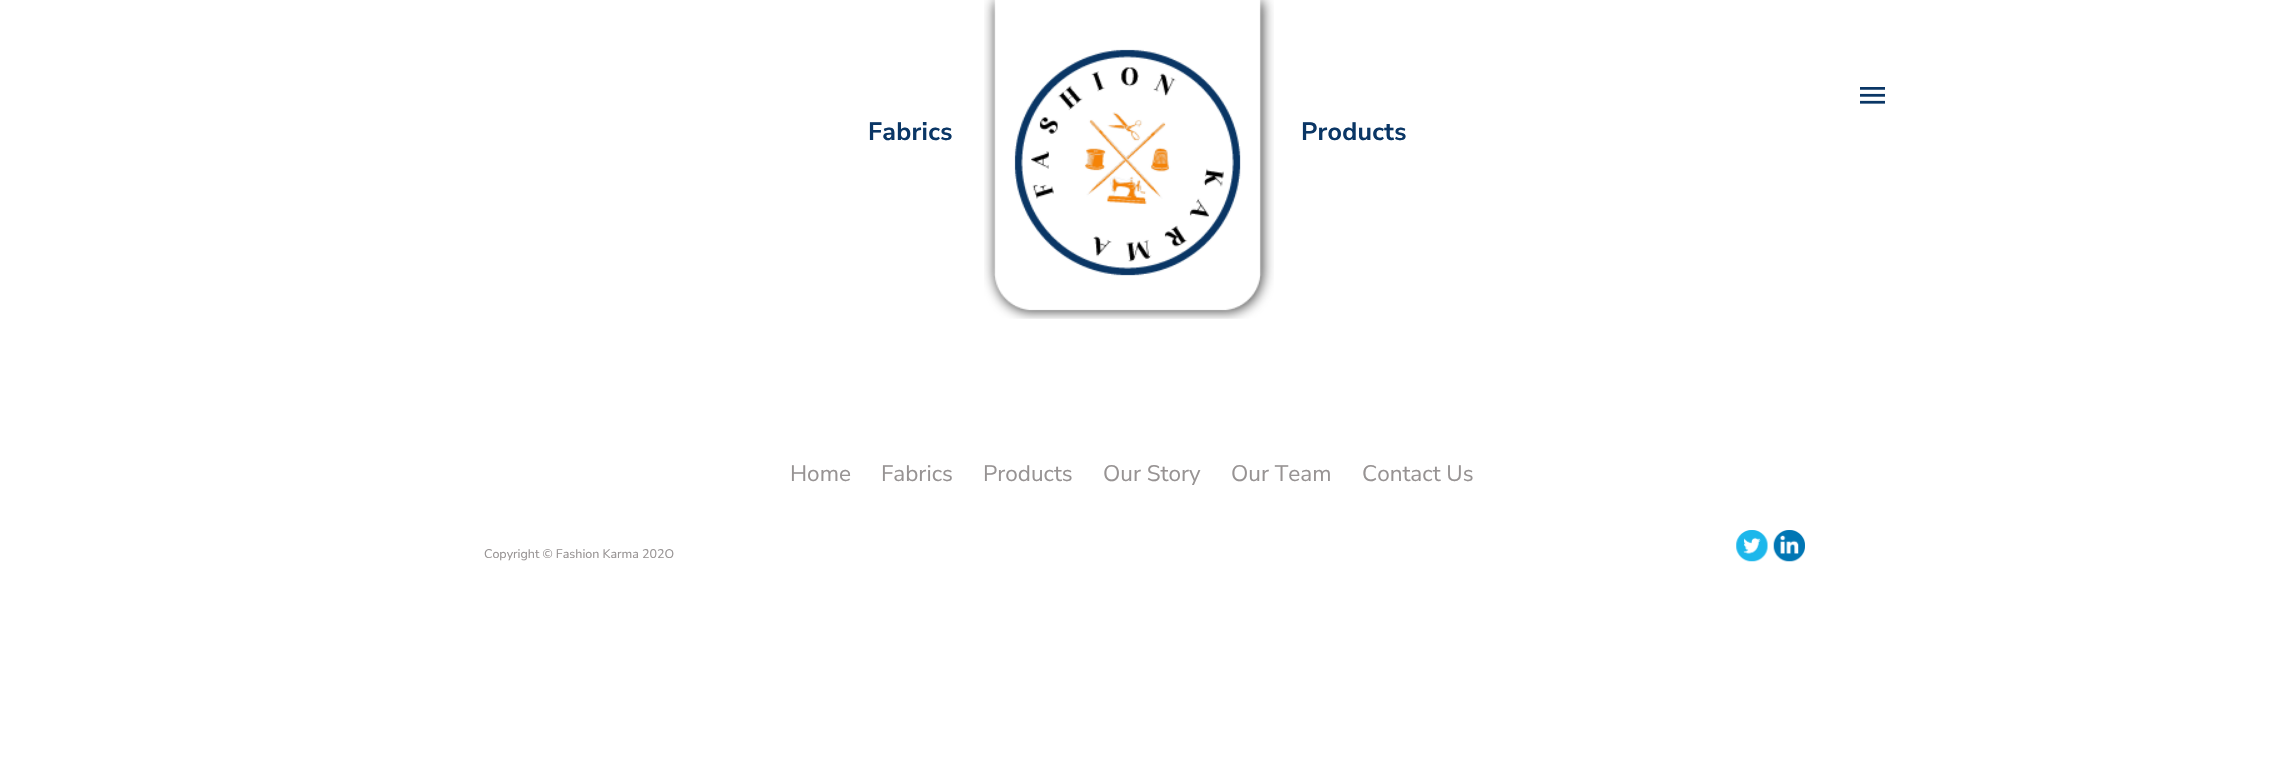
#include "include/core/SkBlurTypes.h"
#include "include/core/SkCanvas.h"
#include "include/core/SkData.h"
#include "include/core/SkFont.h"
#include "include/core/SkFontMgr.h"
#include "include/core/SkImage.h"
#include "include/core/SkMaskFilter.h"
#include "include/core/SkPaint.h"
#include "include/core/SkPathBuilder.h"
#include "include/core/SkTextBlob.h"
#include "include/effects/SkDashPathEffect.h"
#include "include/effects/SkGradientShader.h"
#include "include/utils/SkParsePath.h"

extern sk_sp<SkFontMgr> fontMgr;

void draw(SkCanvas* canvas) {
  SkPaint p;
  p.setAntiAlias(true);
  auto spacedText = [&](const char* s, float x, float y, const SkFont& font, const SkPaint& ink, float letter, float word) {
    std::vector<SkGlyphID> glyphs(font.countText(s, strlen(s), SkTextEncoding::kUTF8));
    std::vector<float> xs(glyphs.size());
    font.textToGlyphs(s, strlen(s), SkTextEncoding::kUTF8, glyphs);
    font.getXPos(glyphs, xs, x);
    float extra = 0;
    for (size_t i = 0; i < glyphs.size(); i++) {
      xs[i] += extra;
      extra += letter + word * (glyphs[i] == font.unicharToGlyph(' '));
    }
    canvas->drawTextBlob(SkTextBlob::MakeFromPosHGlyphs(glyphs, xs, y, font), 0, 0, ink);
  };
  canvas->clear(SK_ColorWHITE);
  canvas->drawImageRect(SkImages::DeferredFromEncodedData(SkData::MakeFromFileName("images/1.png")), SkRect::MakeLTRB(984, 0, 1274, 319), SkSamplingOptions());
  canvas->drawImageRect(SkImages::DeferredFromEncodedData(SkData::MakeFromFileName("images/2.png")), SkRect::MakeLTRB(1860, 87, 1885, 104), SkSamplingOptions());
  canvas->drawImageRect(SkImages::DeferredFromEncodedData(SkData::MakeFromFileName("images/3.png")), SkRect::MakeLTRB(1736, 530, 1768, 562), SkSamplingOptions());
  canvas->drawImageRect(SkImages::DeferredFromEncodedData(SkData::MakeFromFileName("images/4.png")), SkRect::MakeLTRB(1773, 530, 1805, 562), SkSamplingOptions());
  SkFont font1(fontMgr->matchFamilyStyle("Nunito Sans", SkFontStyle::Bold()), 25);
  font1.setSubpixel(true);
  p.setColor(SkColorSetRGB(10, 54, 101));
  spacedText("Fabrics", 868, 140, font1, p, 0.25f, 0);
  spacedText("Products", 1301, 140, font1, p, 0.25f, 0);
  SkFont font2(fontMgr->matchFamilyStyle("Nunito Sans", SkFontStyle::Normal()), 22.5f);
  font2.setSubpixel(true);
  p.setColor(SkColorSetRGB(151, 147, 147));
  canvas->drawString("Home", 790, 481, font2, p);
  canvas->drawString("Fabrics", 881, 481, font2, p);
  canvas->drawString("Products", 983, 481, font2, p);
  canvas->drawString("Our Story", 1103, 481, font2, p);
  canvas->drawString("Our Team", 1231, 481, font2, p);
  canvas->drawString("Contact Us", 1362, 481, font2, p);
  SkFont font3(fontMgr->matchFamilyStyle("Nunito Sans", SkFontStyle::Normal()), 12.5f);
  font3.setSubpixel(true);
  canvas->drawString("Copyright © Fashion Karma 202O", 484, 558, font3, p);
}
